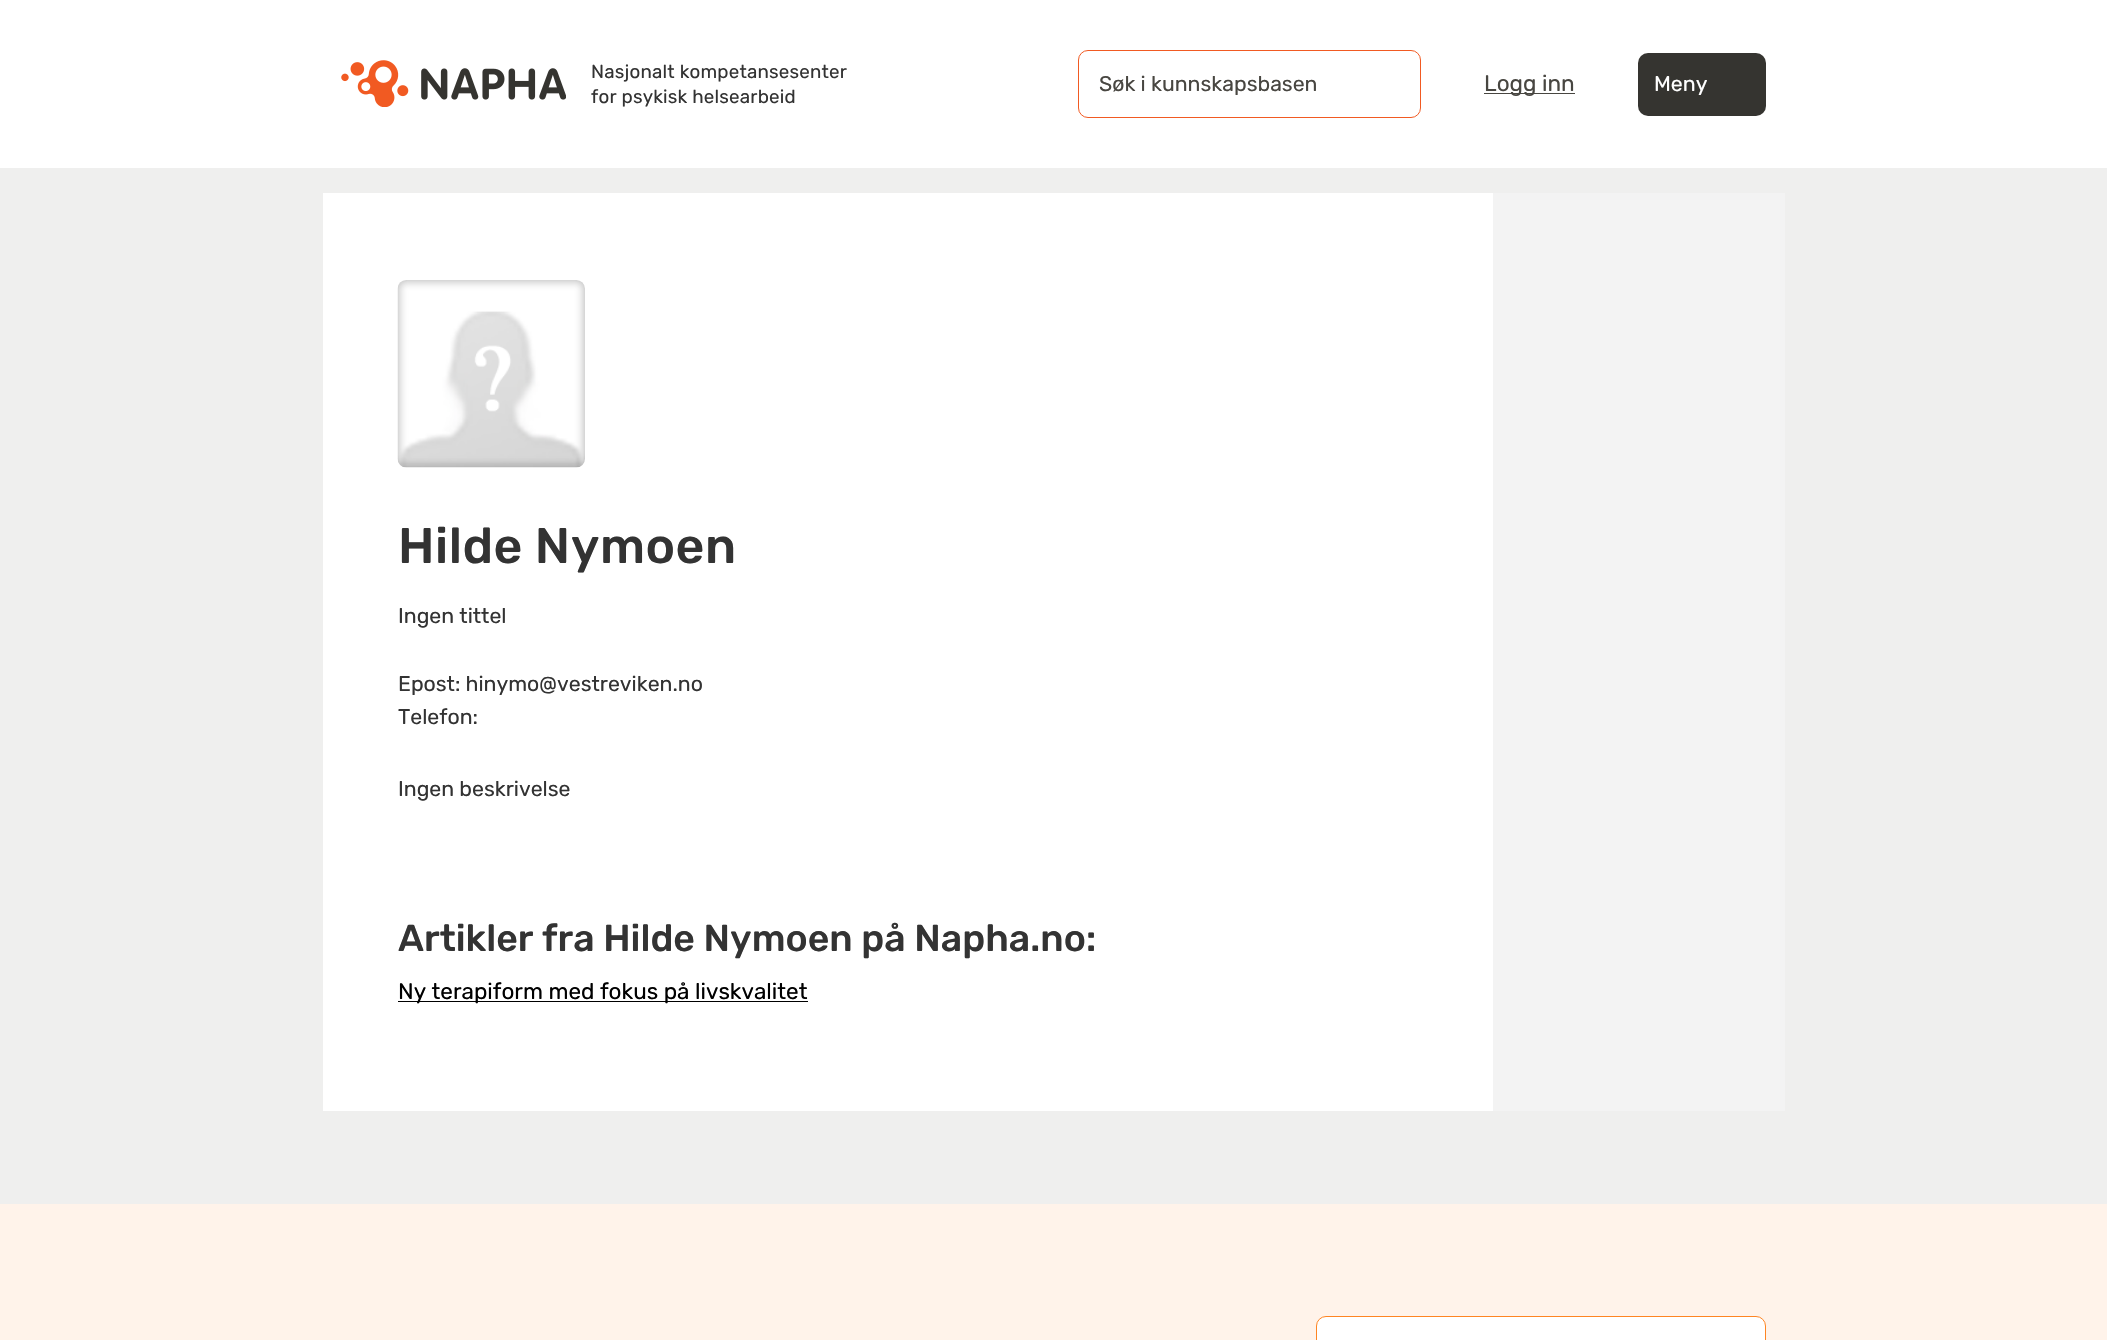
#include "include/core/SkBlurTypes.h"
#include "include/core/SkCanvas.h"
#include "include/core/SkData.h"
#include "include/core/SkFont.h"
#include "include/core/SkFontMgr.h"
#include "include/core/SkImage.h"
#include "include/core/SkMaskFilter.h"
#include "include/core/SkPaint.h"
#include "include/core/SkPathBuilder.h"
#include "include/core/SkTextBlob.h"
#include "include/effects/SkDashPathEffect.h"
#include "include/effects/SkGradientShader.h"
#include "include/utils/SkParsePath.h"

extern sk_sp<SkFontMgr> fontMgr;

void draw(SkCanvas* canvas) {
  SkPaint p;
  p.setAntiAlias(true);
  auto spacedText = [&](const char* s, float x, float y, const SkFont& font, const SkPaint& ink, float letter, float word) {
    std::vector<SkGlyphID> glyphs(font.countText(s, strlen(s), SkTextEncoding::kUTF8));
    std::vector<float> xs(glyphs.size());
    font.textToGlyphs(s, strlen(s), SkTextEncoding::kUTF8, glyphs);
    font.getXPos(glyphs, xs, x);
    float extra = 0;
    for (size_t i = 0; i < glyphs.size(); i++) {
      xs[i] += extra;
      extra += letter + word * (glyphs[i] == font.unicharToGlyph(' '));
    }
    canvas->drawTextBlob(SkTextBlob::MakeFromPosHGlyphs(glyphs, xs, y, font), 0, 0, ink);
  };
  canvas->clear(SkColorSetRGB(239, 239, 238));
  p.setColor(SK_ColorWHITE);
  canvas->drawRect(SkRect::MakeLTRB(0, 0, 2107, 168), p);
  canvas->drawImageRect(SkImages::DeferredFromEncodedData(SkData::MakeFromFileName("images/1.png")), SkRect::MakeLTRB(341, 60, 566, 107), SkSamplingOptions());
  p.setStyle(SkPaint::kStroke_Style);
  p.setStrokeWidth(1);
  p.setColor(SkColorSetRGB(241, 90, 34));
  canvas->drawRoundRect(SkRect::MakeLTRB(1078.5f, 50.5f, 1420.5f, 117.5f), 9.5f, 9.5f, p);
  p.setStyle(SkPaint::kFill_Style);
  p.setColor(SkColorSetRGB(72, 70, 65));
  canvas->drawRect(SkRect::MakeLTRB(1484, 93, 1575, 94), p);
  p.setColor(SkColorSetRGB(53, 52, 48));
  canvas->drawRoundRect(SkRect::MakeLTRB(1638, 53, 1766, 116), 10, 10, p);
  p.setColor(SK_ColorWHITE);
  canvas->drawRect(SkRect::MakeLTRB(323, 193, 1493, 1111), p);
  canvas->drawImageRect(SkImages::DeferredFromEncodedData(SkData::MakeFromFileName("images/2.png")), SkRect::MakeLTRB(397, 280, 585, 468), SkSamplingOptions());
  p.setColor(SK_ColorBLACK);
  canvas->drawRect(SkRect::MakeLTRB(398, 1001, 808, 1002), p);
  p.setColor(SkColorSetRGB(243, 243, 243));
  canvas->drawRect(SkRect::MakeLTRB(1493, 193, 1785, 1111), p);
  p.setColor(SkColorSetRGB(255, 243, 234));
  canvas->drawRect(SkRect::MakeLTRB(0, 1204, 2107, 1340), p);
  p.setColor(SK_ColorWHITE);
  canvas->drawRoundRect(SkRect::MakeLTRB(1316.5f, 1316.5f, 1765.5f, 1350.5f), 9.5f, 9.5f, p);
  p.setStyle(SkPaint::kStroke_Style);
  p.setColor(SkColorSetRGB(254, 133, 35));
  canvas->drawRoundRect(SkRect::MakeLTRB(1316.5f, 1316.5f, 1765.5f, 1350.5f), 9.5f, 9.5f, p);
  SkFont font1(fontMgr->matchFamilyStyle("Rubik", SkFontStyle::Normal()), 18.75f);
  font1.setSubpixel(true);
  p.setStyle(SkPaint::kFill_Style);
  p.setColor(SkColorSetRGB(51, 51, 51));
  spacedText("Nasjonalt kompetansesenter", 591, 78, font1, p, 0.2f, 0);
  spacedText("for psykisk helsearbeid", 591, 103, font1, p, 0.2f, 0);
  SkFont font2(fontMgr->matchFamilyStyle("Rubik", SkFontStyle::Normal()), 21.25f);
  font2.setSubpixel(true);
  p.setColor(SkColorSetRGB(72, 70, 65));
  canvas->drawString("Søk i kunnskapsbasen", 1099, 91, font2, p);
  SkFont font3(fontMgr->matchFamilyStyle("Rubik", SkFontStyle::Normal()), 22.5f);
  font3.setSubpixel(true);
  canvas->drawString("Logg inn", 1484, 91, font3, p);
  p.setColor(SK_ColorWHITE);
  canvas->drawString("Meny", 1654, 91, font2, p);
  SkFont font4(fontMgr->matchFamilyStyle("Rubik", SkFontStyle(500, SkFontStyle::kNormal_Width, SkFontStyle::kUpright_Slant)), 50);
  font4.setSubpixel(true);
  p.setColor(SkColorSetRGB(51, 51, 51));
  spacedText("Hilde Nymoen", 398, 563, font4, p, 0.5f, 0);
  canvas->drawString("Ingen tittel", 398, 623, font2, p);
  canvas->drawString("Epost: hinymo@vestreviken.no", 398, 691, font2, p);
  canvas->drawString("Telefon:", 398, 724, font2, p);
  canvas->drawString("Ingen beskrivelse", 398, 796, font2, p);
  SkFont font5(fontMgr->matchFamilyStyle("Rubik", SkFontStyle(500, SkFontStyle::kNormal_Width, SkFontStyle::kUpright_Slant)), 37.5f);
  font5.setSubpixel(true);
  canvas->drawString("Artikler fra Hilde Nymoen på Napha.no:", 398, 951, font5, p);
  p.setColor(SK_ColorBLACK);
  canvas->drawString("Ny terapiform med fokus på livskvalitet", 398, 999, font3, p);
}
